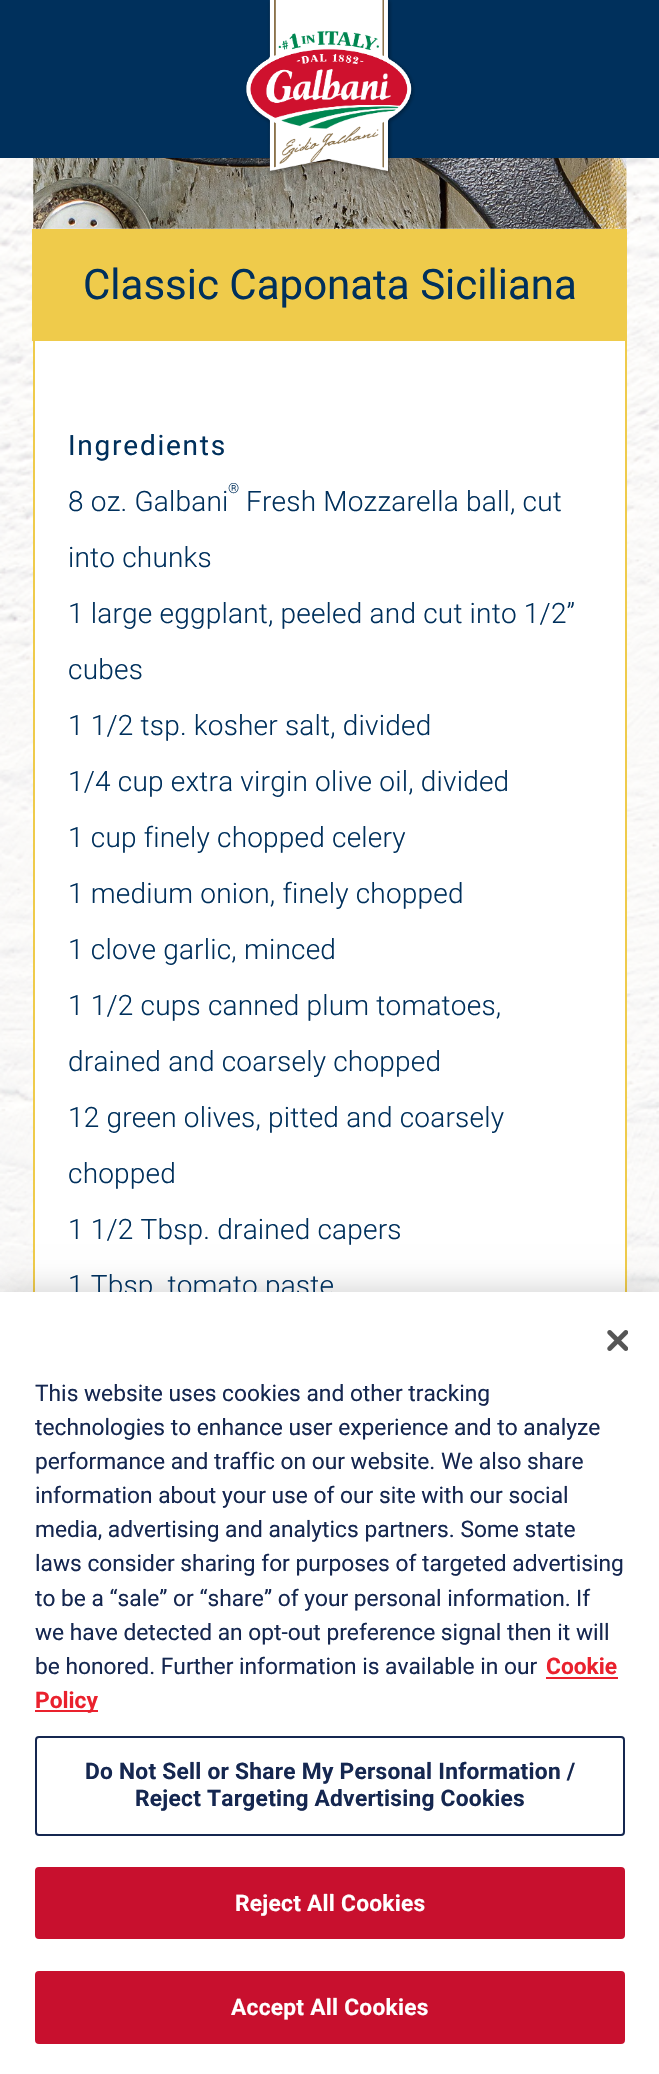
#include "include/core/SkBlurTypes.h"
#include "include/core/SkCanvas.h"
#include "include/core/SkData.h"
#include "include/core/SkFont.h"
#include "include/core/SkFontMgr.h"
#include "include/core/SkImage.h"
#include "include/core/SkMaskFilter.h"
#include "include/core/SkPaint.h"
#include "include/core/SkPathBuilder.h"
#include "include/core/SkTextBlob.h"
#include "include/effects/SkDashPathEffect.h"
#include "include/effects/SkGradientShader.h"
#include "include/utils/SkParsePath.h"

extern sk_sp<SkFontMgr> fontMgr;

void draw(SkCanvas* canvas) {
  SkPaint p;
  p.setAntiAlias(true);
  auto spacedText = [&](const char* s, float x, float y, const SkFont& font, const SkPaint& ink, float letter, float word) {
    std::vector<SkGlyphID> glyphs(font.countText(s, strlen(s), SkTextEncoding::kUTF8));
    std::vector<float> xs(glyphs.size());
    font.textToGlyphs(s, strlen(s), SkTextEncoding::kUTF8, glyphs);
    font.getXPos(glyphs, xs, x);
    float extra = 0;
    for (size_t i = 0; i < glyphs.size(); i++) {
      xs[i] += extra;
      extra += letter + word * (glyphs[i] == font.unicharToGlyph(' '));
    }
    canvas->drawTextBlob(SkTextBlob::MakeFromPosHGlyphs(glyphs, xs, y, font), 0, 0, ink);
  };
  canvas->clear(SK_ColorWHITE);
  canvas->drawImageRect(SkImages::DeferredFromEncodedData(SkData::MakeFromFileName("images/1.png")), SkRect::MakeLTRB(0, 158, 659, 1292), SkSamplingOptions());
  p.setColor(SkColorSetRGB(0, 48, 92));
  canvas->drawRect(SkRect::MakeLTRB(0, 0, 659, 158), p);
  canvas->drawImageRect(SkImages::DeferredFromEncodedData(SkData::MakeFromFileName("images/3.png")), SkRect::MakeLTRB(33, 158, 627, 229), SkSamplingOptions());
  canvas->drawImageRect(SkImages::DeferredFromEncodedData(SkData::MakeFromFileName("images/2.png")), SkRect::MakeLTRB(245, 0, 415, 175), SkSamplingOptions());
  p.setColor(SkColorSetRGB(239, 203, 75));
  canvas->drawRect(SkRect::MakeLTRB(32, 229, 627, 341), p);
  p.setColor(SK_ColorWHITE);
  canvas->drawRect(SkRect::MakeLTRB(35, 341, 625, 1292), p);
  p.setColor(SkColorSetRGB(239, 203, 75));
  canvas->drawRect(SkRect::MakeLTRB(625, 341, 627, 1292), p);
  canvas->drawRect(SkRect::MakeLTRB(33, 341, 35, 1292), p);
  p.setColor(SkColorSetARGB(51, 0, 0, 0));
  p.setMaskFilter(SkMaskFilter::MakeBlur(kNormal_SkBlurStyle, 16));
  canvas->drawRect(SkRect::MakeLTRB(0, 1292, 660, 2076), p);
  p.setMaskFilter(nullptr);
  SkFont font1(fontMgr->matchFamilyStyle("Roboto", SkFontStyle::Normal()), 42);
  font1.setSubpixel(true);
  p.setColor(SkColorSetRGB(0, 48, 92));
  canvas->drawString("Classic Caponata Siciliana", 83, 299, font1, p);
  SkFont font2(fontMgr->matchFamilyStyle("Roboto", SkFontStyle::Normal()), 28);
  font2.setSubpixel(true);
  spacedText("Ingredients", 68, 455, font2, p, 1.75f, 0);
  SkFont font3(fontMgr->matchFamilyStyle("Roboto", SkFontStyle(300, SkFontStyle::kNormal_Width, SkFontStyle::kUpright_Slant)), 14);
  font3.setSubpixel(true);
  spacedText("®", 228, 493, font3, p, 0.2f, 0);
  SkFont font4(fontMgr->matchFamilyStyle("Roboto", SkFontStyle(300, SkFontStyle::kNormal_Width, SkFontStyle::kUpright_Slant)), 28);
  font4.setSubpixel(true);
  spacedText("8 oz. Galbani", 68, 511, font4, p, 0.2f, 0);
  spacedText("Fresh Mozzarella ball, cut", 246, 511, font4, p, 0.2f, 0);
  spacedText("into chunks", 68, 567, font4, p, 0.2f, 0);
  spacedText("1 large eggplant, peeled and cut into 1/2”", 68, 623, font4, p, 0.2f, 0);
  spacedText("cubes", 68, 679, font4, p, 0.2f, 0);
  spacedText("1 1/2 tsp. kosher salt, divided", 68, 735, font4, p, 0.2f, 0);
  spacedText("1/4 cup extra virgin olive oil, divided", 68, 791, font4, p, 0.2f, 0);
  spacedText("1 cup finely chopped celery", 68, 847, font4, p, 0.2f, 0);
  spacedText("1 medium onion, finely chopped", 68, 903, font4, p, 0.2f, 0);
  spacedText("1 clove garlic, minced", 68, 959, font4, p, 0.2f, 0);
  spacedText("1 1/2 cups canned plum tomatoes,", 68, 1015, font4, p, 0.2f, 0);
  spacedText("drained and coarsely chopped", 68, 1071, font4, p, 0.2f, 0);
  spacedText("12 green olives, pitted and coarsely", 68, 1127, font4, p, 0.2f, 0);
  spacedText("chopped", 68, 1183, font4, p, 0.2f, 0);
  spacedText("1 1/2 Tbsp. drained capers", 68, 1239, font4, p, 0.2f, 0);
  spacedText("1 Tbsp. tomato paste", 68, 1295, font4, p, 0.2f, 0);
  p.setColor(SK_ColorWHITE);
  canvas->drawRect(SkRect::MakeLTRB(0, 1292, 659, 2074), p);
  canvas->drawImageRect(SkImages::DeferredFromEncodedData(SkData::MakeFromFileName("images/4.png")), SkRect::MakeLTRB(607, 1330, 628, 1351), SkSamplingOptions());
  SkFont font5(fontMgr->matchFamilyStyle("Roboto", SkFontStyle::Normal()), 22.75f);
  font5.setSubpixel(true);
  p.setColor(SkColorSetRGB(21, 39, 80));
  canvas->drawString("This website uses cookies and other tracking", 35, 1401, font5, p);
  canvas->drawString("technologies to enhance user experience and to analyze", 35, 1435, font5, p);
  canvas->drawString("performance and traffic on our website. We also share", 35, 1469, font5, p);
  canvas->drawString("information about your use of our site with our social", 35, 1503, font5, p);
  canvas->drawString("media, advertising and analytics partners. Some state", 35, 1537, font5, p);
  canvas->drawString("laws consider sharing for purposes of targeted advertising", 35, 1571, font5, p);
  canvas->drawString("to be a “sale” or “share” of your personal information.", 35, 1606, font5, p);
  canvas->drawString("If", 576, 1606, font5, p);
  canvas->drawString("we have detected an opt-out preference signal then it will", 35, 1640, font5, p);
  canvas->drawString("be honored. Further information is available in our", 35, 1674, font5, p);
  SkFont font6(fontMgr->matchFamilyStyle("Roboto", SkFontStyle::Bold()), 22.75f);
  font6.setSubpixel(true);
  p.setColor(SkColorSetRGB(234, 33, 45));
  canvas->drawString("Cookie", 546, 1674, font6, p);
  canvas->drawRect(SkRect::MakeLTRB(546, 1677, 618, 1679), p);
  canvas->drawRect(SkRect::MakeLTRB(35, 1710, 98, 1712), p);
  canvas->drawString("Policy", 35, 1708, font6, p);
  p.setStyle(SkPaint::kStroke_Style);
  p.setStrokeWidth(2);
  p.setColor(SkColorSetRGB(21, 39, 80));
  canvas->drawRoundRect(SkRect::MakeLTRB(36, 1737, 624, 1835), 3, 3, p);
  p.setStyle(SkPaint::kFill_Style);
  spacedText("Do Not Sell or Share My Personal Information /", 85, 1779, font6, p, 0.25f, 0);
  spacedText("Reject Targeting Advertising Cookies", 135, 1806, font6, p, 0.25f, 0);
  p.setColor(SkColorSetRGB(200, 16, 46));
  canvas->drawRoundRect(SkRect::MakeLTRB(36, 1868, 624, 1938), 3, 3, p);
  p.setStyle(SkPaint::kStroke_Style);
  canvas->drawRoundRect(SkRect::MakeLTRB(36, 1868, 624, 1938), 3, 3, p);
  p.setStyle(SkPaint::kFill_Style);
  p.setColor(SK_ColorWHITE);
  spacedText("Reject All Cookies", 235, 1911, font6, p, 0.25f, 0);
  p.setColor(SkColorSetRGB(200, 16, 46));
  canvas->drawRoundRect(SkRect::MakeLTRB(36, 1972, 624, 2043), 3, 3, p);
  p.setStyle(SkPaint::kStroke_Style);
  canvas->drawRoundRect(SkRect::MakeLTRB(36, 1972, 624, 2043), 3, 3, p);
  p.setStyle(SkPaint::kFill_Style);
  p.setColor(SK_ColorWHITE);
  spacedText("Accept All Cookies", 231, 2015, font6, p, 0.25f, 0);
}
